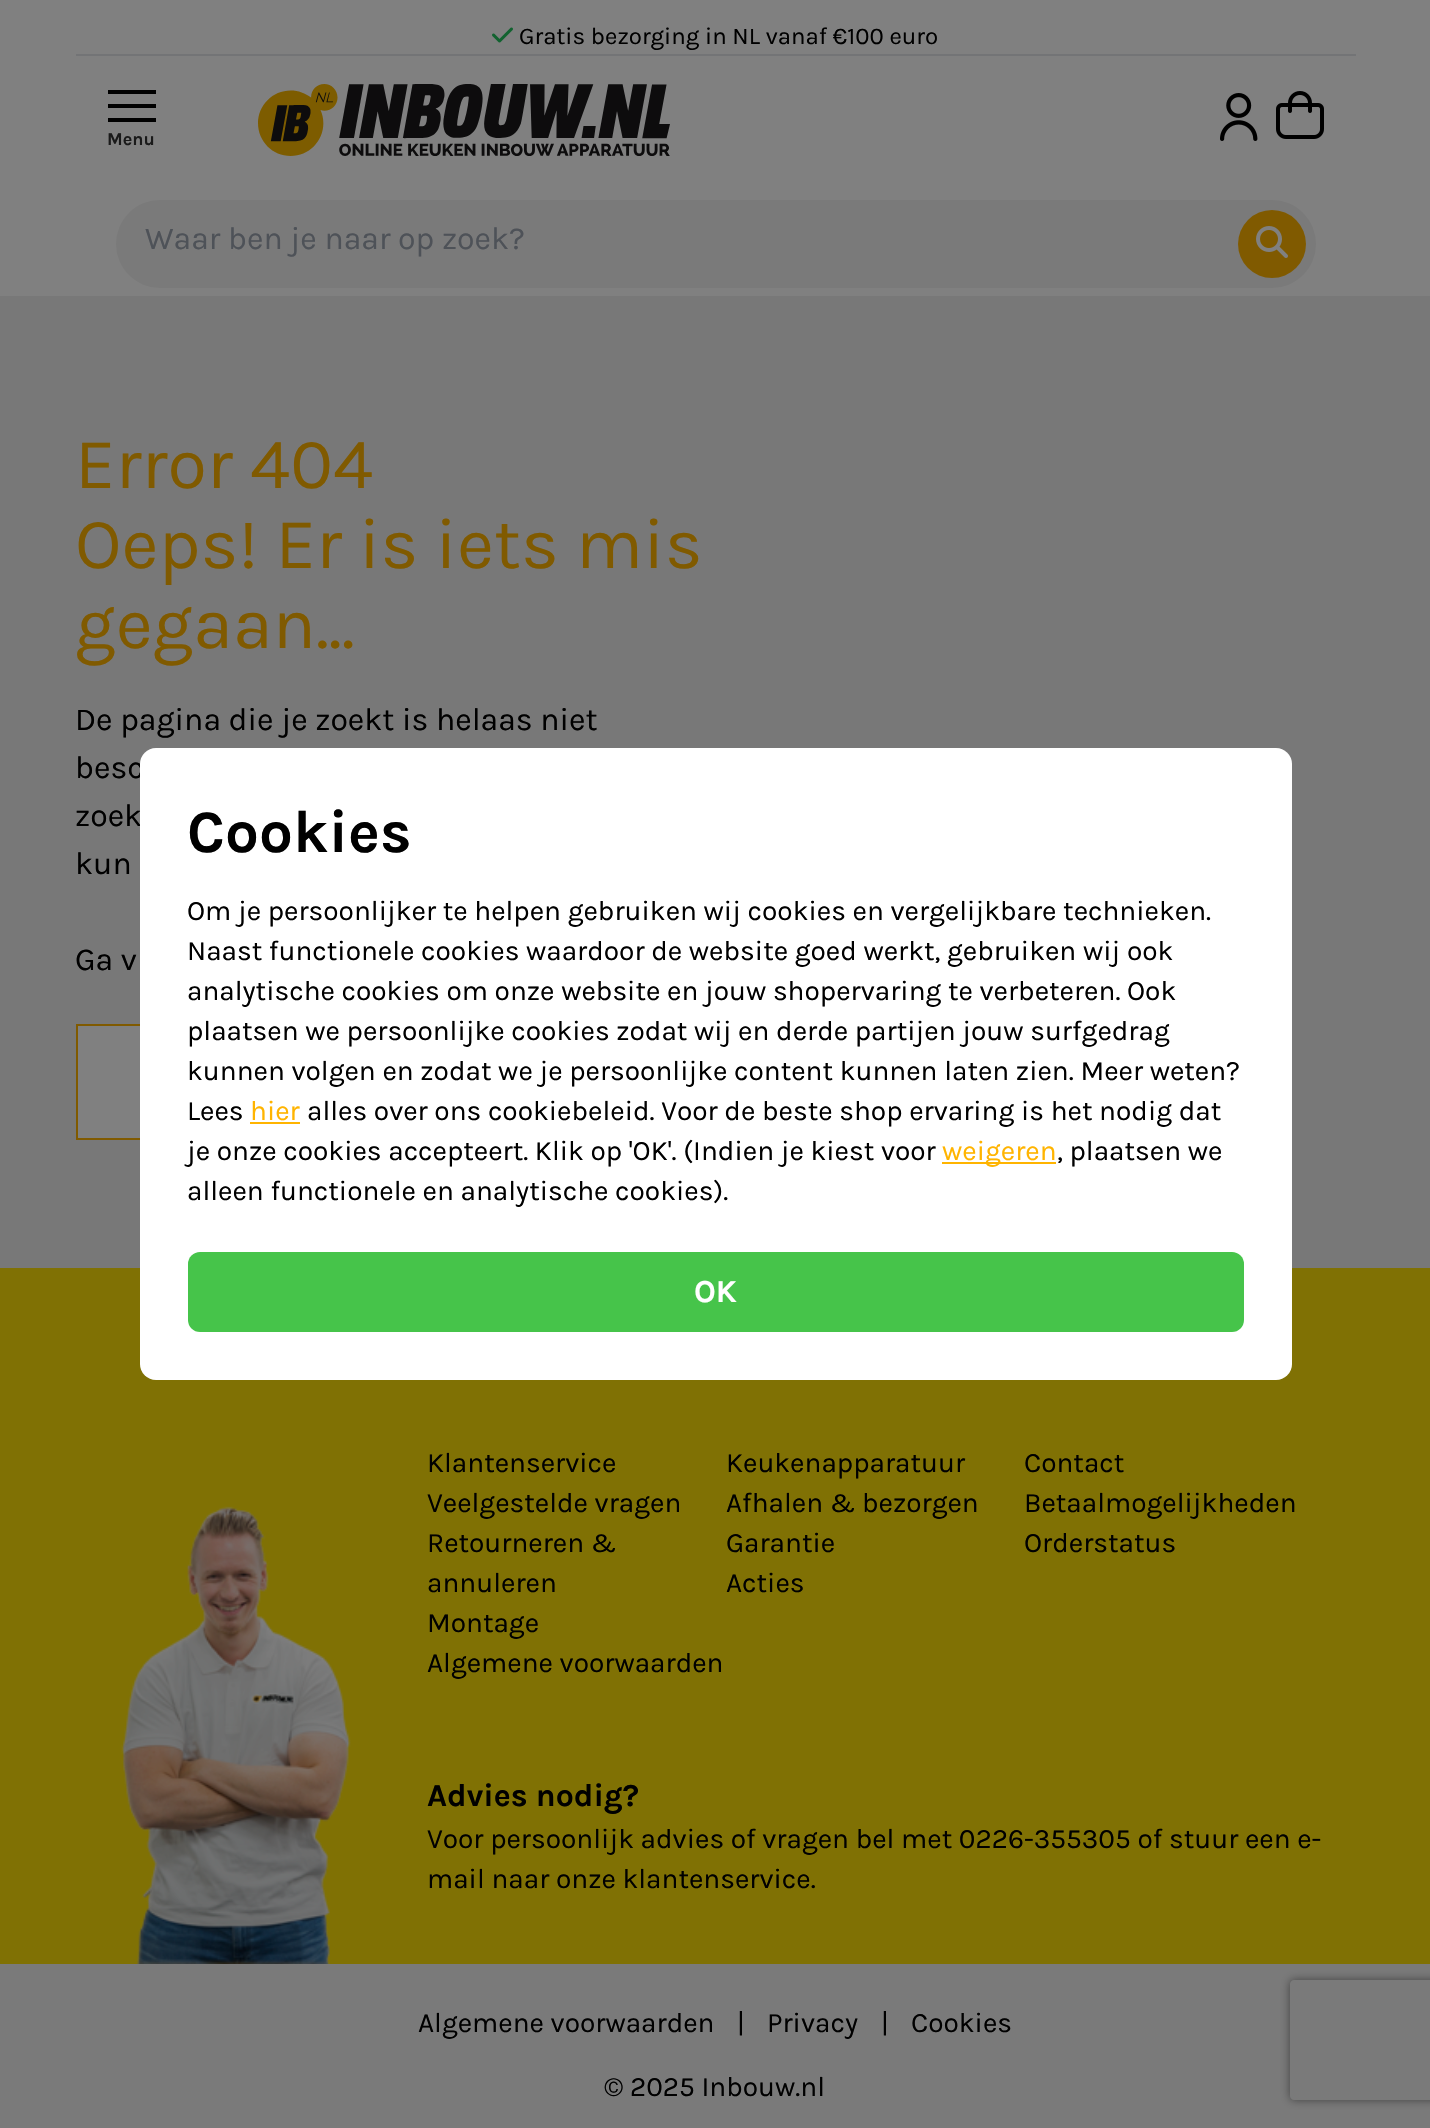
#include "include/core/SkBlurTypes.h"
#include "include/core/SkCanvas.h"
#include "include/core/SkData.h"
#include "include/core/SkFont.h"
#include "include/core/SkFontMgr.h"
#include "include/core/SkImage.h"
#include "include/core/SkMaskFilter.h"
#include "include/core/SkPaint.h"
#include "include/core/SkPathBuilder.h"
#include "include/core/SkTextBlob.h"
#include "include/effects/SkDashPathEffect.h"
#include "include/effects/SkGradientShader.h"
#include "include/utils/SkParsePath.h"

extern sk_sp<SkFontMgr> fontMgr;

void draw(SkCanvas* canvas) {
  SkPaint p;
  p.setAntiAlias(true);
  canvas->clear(SkColorSetRGB(128, 128, 128));
  p.setColor(SkColorSetRGB(115, 116, 118));
  canvas->drawRect(SkRect::MakeLTRB(76, 54, 1356, 56), p);
  canvas->drawImageRect(SkImages::DeferredFromEncodedData(SkData::MakeFromFileName("images/1.png")), SkRect::MakeLTRB(492, 27, 513, 43), SkSamplingOptions());
  p.setColor(SK_ColorBLACK);
  canvas->drawRect(SkRect::MakeLTRB(108, 90, 156, 94), p);
  canvas->drawRect(SkRect::MakeLTRB(108, 104, 156, 108), p);
  canvas->drawRect(SkRect::MakeLTRB(108, 118, 156, 122), p);
  canvas->drawImageRect(SkImages::DeferredFromEncodedData(SkData::MakeFromFileName("images/2.png")), SkRect::MakeLTRB(258, 84, 670, 156), SkSamplingOptions());
  canvas->drawImageRect(SkImages::DeferredFromEncodedData(SkData::MakeFromFileName("images/3.png")), SkRect::MakeLTRB(1220, 93, 1258, 141), SkSamplingOptions());
  canvas->drawImageRect(SkImages::DeferredFromEncodedData(SkData::MakeFromFileName("images/4.png")), SkRect::MakeLTRB(1276, 91, 1324, 139), SkSamplingOptions());
  p.setColor(SkColorSetRGB(122, 122, 122));
  canvas->drawRoundRect(SkRect::MakeLTRB(116, 200, 1316, 288), 44, 44, p);
  p.setColor(SkColorSetRGB(128, 90, 0));
  canvas->drawCircle(1272, 244, 34, p);
  canvas->drawImageRect(SkImages::DeferredFromEncodedData(SkData::MakeFromFileName("images/5.png")), SkRect::MakeLTRB(1256, 226, 1288, 258), SkSamplingOptions());
  p.setColor(SkColorSetRGB(120, 120, 120));
  canvas->drawRect(SkRect::MakeLTRB(0, 296, 1430, 1268), p);
  p.setColor(SkColorSetRGB(128, 128, 128));
  canvas->drawRect(SkRect::MakeLTRB(78, 1026, 140, 1138), p);
  p.setStyle(SkPaint::kStroke_Style);
  p.setStrokeWidth(2);
  p.setColor(SkColorSetRGB(128, 90, 0));
  canvas->drawRect(SkRect::MakeLTRB(77, 1025, 303, 1139), p);
  p.setStyle(SkPaint::kFill_Style);
  p.setColor(SkColorSetRGB(128, 113, 4));
  canvas->drawRect(SkRect::MakeLTRB(0, 1268, 1430, 1964), p);
  canvas->drawImageRect(SkImages::DeferredFromEncodedData(SkData::MakeFromFileName("images/6.png")), SkRect::MakeLTRB(121, 1506, 351, 1964), SkSamplingOptions());
  p.setColor(SkColorSetRGB(122, 122, 122));
  canvas->drawRect(SkRect::MakeLTRB(0, 1964, 1430, 2128), p);
  canvas->save();
  canvas->clipPath(SkPathBuilder(SkPathFillType::kEvenOdd).moveTo(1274, 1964).lineTo(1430, 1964).lineTo(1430, 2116).lineTo(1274, 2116).close().moveTo(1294, 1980).lineTo(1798, 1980).cubicTo(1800, 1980, 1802, 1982, 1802, 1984).lineTo(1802, 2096).cubicTo(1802, 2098, 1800, 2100, 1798, 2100).lineTo(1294, 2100).cubicTo(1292, 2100, 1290, 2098, 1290, 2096).lineTo(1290, 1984).cubicTo(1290, 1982, 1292, 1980, 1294, 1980).close().detach(), true);
  p.setColor(SkColorSetRGB(64, 64, 64));
  p.setMaskFilter(SkMaskFilter::MakeBlur(kNormal_SkBlurStyle, 5));
  canvas->drawRoundRect(SkRect::MakeLTRB(1290, 1980, 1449, 2100), 4, 4, p);
  p.setMaskFilter(nullptr);
  canvas->restore();
  SkFont font1(fontMgr->matchFamilyStyle("Karla", SkFontStyle::Normal()), 24);
  font1.setSubpixel(true);
  p.setColor(SK_ColorBLACK);
  canvas->drawString("Gratis bezorging in NL vanaf €100 euro", 519, 44, font1, p);
  SkFont font2(fontMgr->matchFamilyStyle("Karla", SkFontStyle::Bold()), 18);
  font2.setSubpixel(true);
  p.setColor(SkColorSetRGB(26, 26, 26));
  canvas->drawString("Menu", 107, 145, font2, p);
  SkFont font3(fontMgr->matchFamilyStyle("Karla", SkFontStyle::Normal()), 32);
  font3.setSubpixel(true);
  p.setColor(SkColorSetRGB(78, 82, 88));
  canvas->drawString("Waar ben je naar op zoek?", 145, 249, font3, p);
  SkFont font4(fontMgr->matchFamilyStyle("Karla", SkFontStyle::Normal()), 72);
  font4.setSubpixel(true);
  p.setColor(SkColorSetRGB(128, 90, 0));
  canvas->drawString("Error 404", 75, 488, font4, p);
  canvas->drawString("Oeps! Er is iets mis", 75, 568, font4, p);
  canvas->drawString("gegaan...", 75, 648, font4, p);
  p.setColor(SK_ColorBLACK);
  canvas->drawString("De pagina die je zoekt is helaas niet", 75, 730, font3, p);
  canvas->drawString("besc", 75, 778, font3, p);
  canvas->drawString("zoek", 75, 826, font3, p);
  canvas->drawString("kun", 75, 874, font3, p);
  canvas->drawString("Ga v", 75, 970, font3, p);
  SkFont font5(fontMgr->matchFamilyStyle("Karla", SkFontStyle::Normal()), 28);
  font5.setSubpixel(true);
  canvas->drawString("Klantenservice", 427, 1472, font5, p);
  canvas->drawString("Veelgestelde vragen", 427, 1512, font5, p);
  canvas->drawString("Retourneren &", 427, 1552, font5, p);
  canvas->drawString("annuleren", 427, 1592, font5, p);
  canvas->drawString("Montage", 427, 1632, font5, p);
  canvas->drawString("Algemene voorwaarden", 427, 1672, font5, p);
  canvas->drawString("Keukenapparatuur", 726, 1472, font5, p);
  canvas->drawString("Afhalen & bezorgen", 726, 1512, font5, p);
  canvas->drawString("Garantie", 726, 1552, font5, p);
  canvas->drawString("Acties", 726, 1592, font5, p);
  canvas->drawString("Contact", 1024, 1472, font5, p);
  canvas->drawString("Betaalmogelijkheden", 1024, 1512, font5, p);
  canvas->drawString("Orderstatus", 1024, 1552, font5, p);
  SkFont font6(fontMgr->matchFamilyStyle("Karla", SkFontStyle::Bold()), 32);
  font6.setSubpixel(true);
  canvas->drawString("Advies nodig?", 427, 1806, font6, p);
  canvas->drawString("Voor persoonlijk advies of vragen bel met 0226-355305 of stuur een e-", 427, 1848, font5, p);
  canvas->drawString("mail naar onze klantenservice.", 427, 1888, font5, p);
  canvas->drawString("Algemene voorwaarden", 418, 2032, font5, p);
  canvas->drawString("|", 737, 2032, font5, p);
  canvas->drawString("Privacy", 767, 2032, font5, p);
  canvas->drawString("|", 881, 2032, font5, p);
  canvas->drawString("Cookies", 911, 2032, font5, p);
  canvas->drawString("© 2025 Inbouw.nl", 604, 2096, font5, p);
  p.setColor(SK_ColorWHITE);
  canvas->drawRoundRect(SkRect::MakeLTRB(140, 748, 1292, 1380), 16, 16, p);
  SkFont font7(fontMgr->matchFamilyStyle("Karla", SkFontStyle::Bold()), 60);
  font7.setSubpixel(true);
  p.setColor(SK_ColorBLACK);
  canvas->drawString("Cookies", 187, 852, font7, p);
  canvas->drawString("Om je persoonlijker te helpen gebruiken wij cookies en vergelijkbare technieken.", 187, 920, font5, p);
  canvas->drawString("Naast functionele cookies waardoor de website goed werkt, gebruiken wij ook", 187, 960, font5, p);
  canvas->drawString("analytische cookies om onze website en jouw shopervaring te verbeteren. Ook", 187, 1000, font5, p);
  canvas->drawString("plaatsen we persoonlijke cookies zodat wij en derde partijen jouw surfgedrag", 187, 1040, font5, p);
  canvas->drawString("kunnen volgen en zodat we je persoonlijke content kunnen laten zien. Meer weten?", 187, 1080, font5, p);
  canvas->drawString("Lees", 187, 1120, font5, p);
  p.setColor(SkColorSetRGB(255, 180, 0));
  canvas->drawString("hier", 250, 1120, font5, p);
  canvas->drawRect(SkRect::MakeLTRB(250, 1122, 300, 1124), p);
  p.setColor(SK_ColorBLACK);
  canvas->drawString("alles over ons cookiebeleid. Voor de beste shop ervaring is het nodig dat", 307, 1120, font5, p);
  canvas->drawString("je onze cookies accepteert. Klik op 'OK'. (Indien je kiest voor", 187, 1160, font5, p);
  p.setColor(SkColorSetRGB(255, 180, 0));
  canvas->drawRect(SkRect::MakeLTRB(942, 1162, 1056, 1164), p);
  canvas->drawString("weigeren", 942, 1160, font5, p);
  p.setColor(SK_ColorBLACK);
  canvas->drawString(", plaatsen we", 1057, 1160, font5, p);
  canvas->drawString("alleen functionele en analytische cookies).", 187, 1200, font5, p);
  p.setColor(SkColorSetRGB(70, 196, 74));
  canvas->drawRoundRect(SkRect::MakeLTRB(188, 1252, 1244, 1332), 12, 12, p);
  p.setColor(SK_ColorWHITE);
  canvas->drawString("OK", 694, 1302, font6, p);
}
